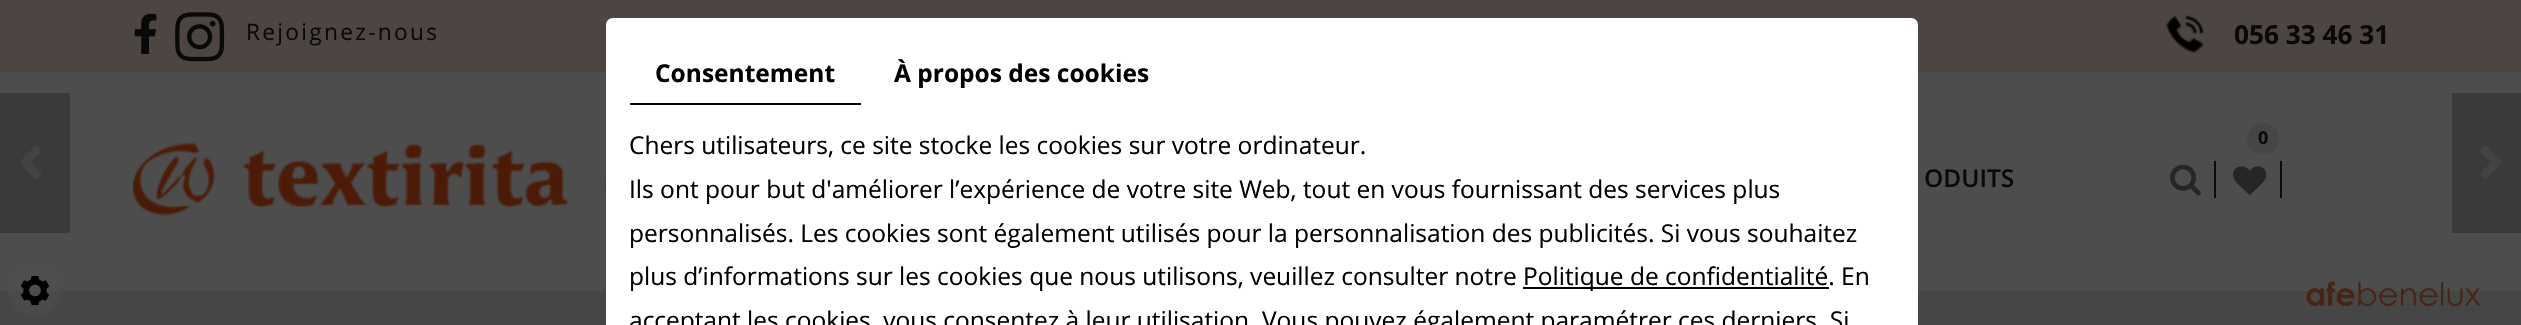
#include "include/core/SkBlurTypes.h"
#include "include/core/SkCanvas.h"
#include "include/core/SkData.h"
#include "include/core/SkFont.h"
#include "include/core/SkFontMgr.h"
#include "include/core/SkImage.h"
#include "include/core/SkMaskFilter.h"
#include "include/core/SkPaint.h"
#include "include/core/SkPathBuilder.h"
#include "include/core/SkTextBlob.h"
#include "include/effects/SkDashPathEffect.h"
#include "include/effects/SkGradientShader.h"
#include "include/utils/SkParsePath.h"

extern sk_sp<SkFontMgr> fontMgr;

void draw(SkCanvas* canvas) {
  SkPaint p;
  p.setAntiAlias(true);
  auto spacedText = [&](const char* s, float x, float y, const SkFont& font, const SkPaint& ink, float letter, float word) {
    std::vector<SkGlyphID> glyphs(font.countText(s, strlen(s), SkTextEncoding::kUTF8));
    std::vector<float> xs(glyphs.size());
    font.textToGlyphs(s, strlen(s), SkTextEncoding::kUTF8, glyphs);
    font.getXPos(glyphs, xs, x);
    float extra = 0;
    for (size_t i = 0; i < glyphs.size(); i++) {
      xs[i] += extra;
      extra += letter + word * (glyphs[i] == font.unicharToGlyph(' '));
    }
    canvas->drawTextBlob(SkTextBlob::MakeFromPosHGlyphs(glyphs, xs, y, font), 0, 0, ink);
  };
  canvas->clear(SkColorSetRGB(77, 77, 77));
  p.setColor(SkColorSetRGB(77, 69, 66));
  canvas->drawRect(SkRect::MakeLTRB(0, 0, 2521, 72), p);
  canvas->drawImageRect(SkImages::DeferredFromEncodedData(SkData::MakeFromFileName("images/1.png")), SkRect::MakeLTRB(134, 13, 157, 54), SkSamplingOptions());
  canvas->drawImageRect(SkImages::DeferredFromEncodedData(SkData::MakeFromFileName("images/2.png")), SkRect::MakeLTRB(175, 12, 225, 62), SkSamplingOptions());
  canvas->drawImageRect(SkImages::DeferredFromEncodedData(SkData::MakeFromFileName("images/3.png")), SkRect::MakeLTRB(2166, 15, 2204, 53), SkSamplingOptions());
  p.setColor(SkColorSetRGB(70, 70, 70));
  canvas->drawRect(SkRect::MakeLTRB(0, 291, 2521, 325), p);
  p.setColor(SkColorSetRGB(58, 58, 58));
  canvas->drawRect(SkRect::MakeLTRB(0, 93, 70, 233), p);
  canvas->drawImageRect(SkImages::DeferredFromEncodedData(SkData::MakeFromFileName("images/4.png")), SkRect::MakeLTRB(20, 146, 41, 179), SkSamplingOptions());
  canvas->drawRect(SkRect::MakeLTRB(2452, 93, 2521, 233), p);
  canvas->drawImageRect(SkImages::DeferredFromEncodedData(SkData::MakeFromFileName("images/5.png")), SkRect::MakeLTRB(2480, 146, 2502, 179), SkSamplingOptions());
  p.setColor(SkColorSetRGB(70, 70, 70));
  canvas->drawRoundRect(SkRect::MakeLTRB(2247, 123, 2279, 154), 15.5f, 15.5f, p);
  canvas->drawImageRect(SkImages::DeferredFromEncodedData(SkData::MakeFromFileName("images/6.png")), SkRect::MakeLTRB(2233, 166, 2267, 195), SkSamplingOptions());
  p.setColor(SkColorSetRGB(12, 12, 12));
  canvas->drawRect(SkRect::MakeLTRB(2280, 161, 2282, 198), p);
  canvas->drawImageRect(SkImages::DeferredFromEncodedData(SkData::MakeFromFileName("images/7.png")), SkRect::MakeLTRB(2170, 164, 2201, 196), SkSamplingOptions());
  canvas->drawRect(SkRect::MakeLTRB(2214, 161, 2216, 198), p);
  canvas->drawImageRect(SkImages::DeferredFromEncodedData(SkData::MakeFromFileName("images/8.png")), SkRect::MakeLTRB(133, 143, 606, 216), SkSamplingOptions());
  p.setColor(SkColorSetARGB(138, 77, 77, 77));
  canvas->drawRoundRect(SkRect::MakeLTRB(9, 264, 61, 317), 26, 26, p);
  canvas->drawImageRect(SkImages::DeferredFromEncodedData(SkData::MakeFromFileName("images/9.png")), SkRect::MakeLTRB(20, 275, 50, 306), SkSamplingOptions());
  p.setColor(SK_ColorWHITE);
  canvas->drawPath(SkPathBuilder().moveTo(613, 18).lineTo(1911, 18).cubicTo(1915, 18, 1918, 21, 1918, 25).lineTo(1918, 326).lineTo(606, 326).lineTo(606, 25).cubicTo(606, 21, 609, 18, 613, 18).close().detach(), p);
  p.setColor(SK_ColorBLACK);
  canvas->drawRect(SkRect::MakeLTRB(630, 103, 861, 105), p);
  canvas->drawRect(SkRect::MakeLTRB(1523, 287, 1829, 289), p);
  canvas->drawImageRect(SkImages::DeferredFromEncodedData(SkData::MakeFromFileName("images/10.png")), SkRect::MakeLTRB(2306, 281, 2481, 307), SkSamplingOptions());
  SkFont font1(fontMgr->matchFamilyStyle("Open Sans", SkFontStyle::Normal()), 22.75f);
  font1.setSubpixel(true);
  p.setColor(SkColorSetRGB(9, 9, 9));
  spacedText("Rejoignez-nous", 246, 40, font1, p, 2.25f, 0);
  SkFont font2(fontMgr->matchFamilyStyle("Open Sans", SkFontStyle::Bold()), 26.25f);
  font2.setSubpixel(true);
  canvas->drawString("056 33 46 31", 2234, 44, font2, p);
  SkFont font3(fontMgr->matchFamilyStyle("Open Sans", SkFontStyle::Bold()), 18);
  font3.setSubpixel(true);
  canvas->drawString("0", 2258, 144, font3, p);
  SkFont font4(fontMgr->matchFamilyStyle("Open Sans", SkFontStyle(600, SkFontStyle::kNormal_Width, SkFontStyle::kUpright_Slant)), 24.5f);
  font4.setSubpixel(true);
  canvas->drawString("ODUITS", 1924, 187, font4, p);
  SkFont font5(fontMgr->matchFamilyStyle("Open Sans", SkFontStyle::Bold()), 24.5f);
  font5.setSubpixel(true);
  p.setColor(SK_ColorBLACK);
  canvas->drawString("Consentement", 655, 82, font5, p);
  canvas->drawString("À propos des cookies", 894, 82, font5, p);
  SkFont font6(fontMgr->matchFamilyStyle("Open Sans", SkFontStyle::Normal()), 24.5f);
  font6.setSubpixel(true);
  canvas->drawString("Chers utilisateurs, ce site stocke les cookies sur votre ordinateur.", 629, 154, font6, p);
  canvas->drawString("Ils ont pour but d'améliorer l’expérience de votre site Web, tout en vous fournissant des services plus", 629, 198, font6, p);
  canvas->drawString("personnalisés. Les cookies sont également utilisés pour la personnalisation des publicités. Si vous souhaitez", 629, 242, font6, p);
  canvas->drawString("plus d’informations sur les cookies que nous utilisons, veuillez consulter notre", 629, 285, font6, p);
  canvas->drawString("Politique de confidentialité. En", 1523, 285, font6, p);
  canvas->drawString("acceptant les cookies, vous consentez à leur utilisation. Vous pouvez également paramétrer ces derniers. Si", 629, 329, font6, p);
}
